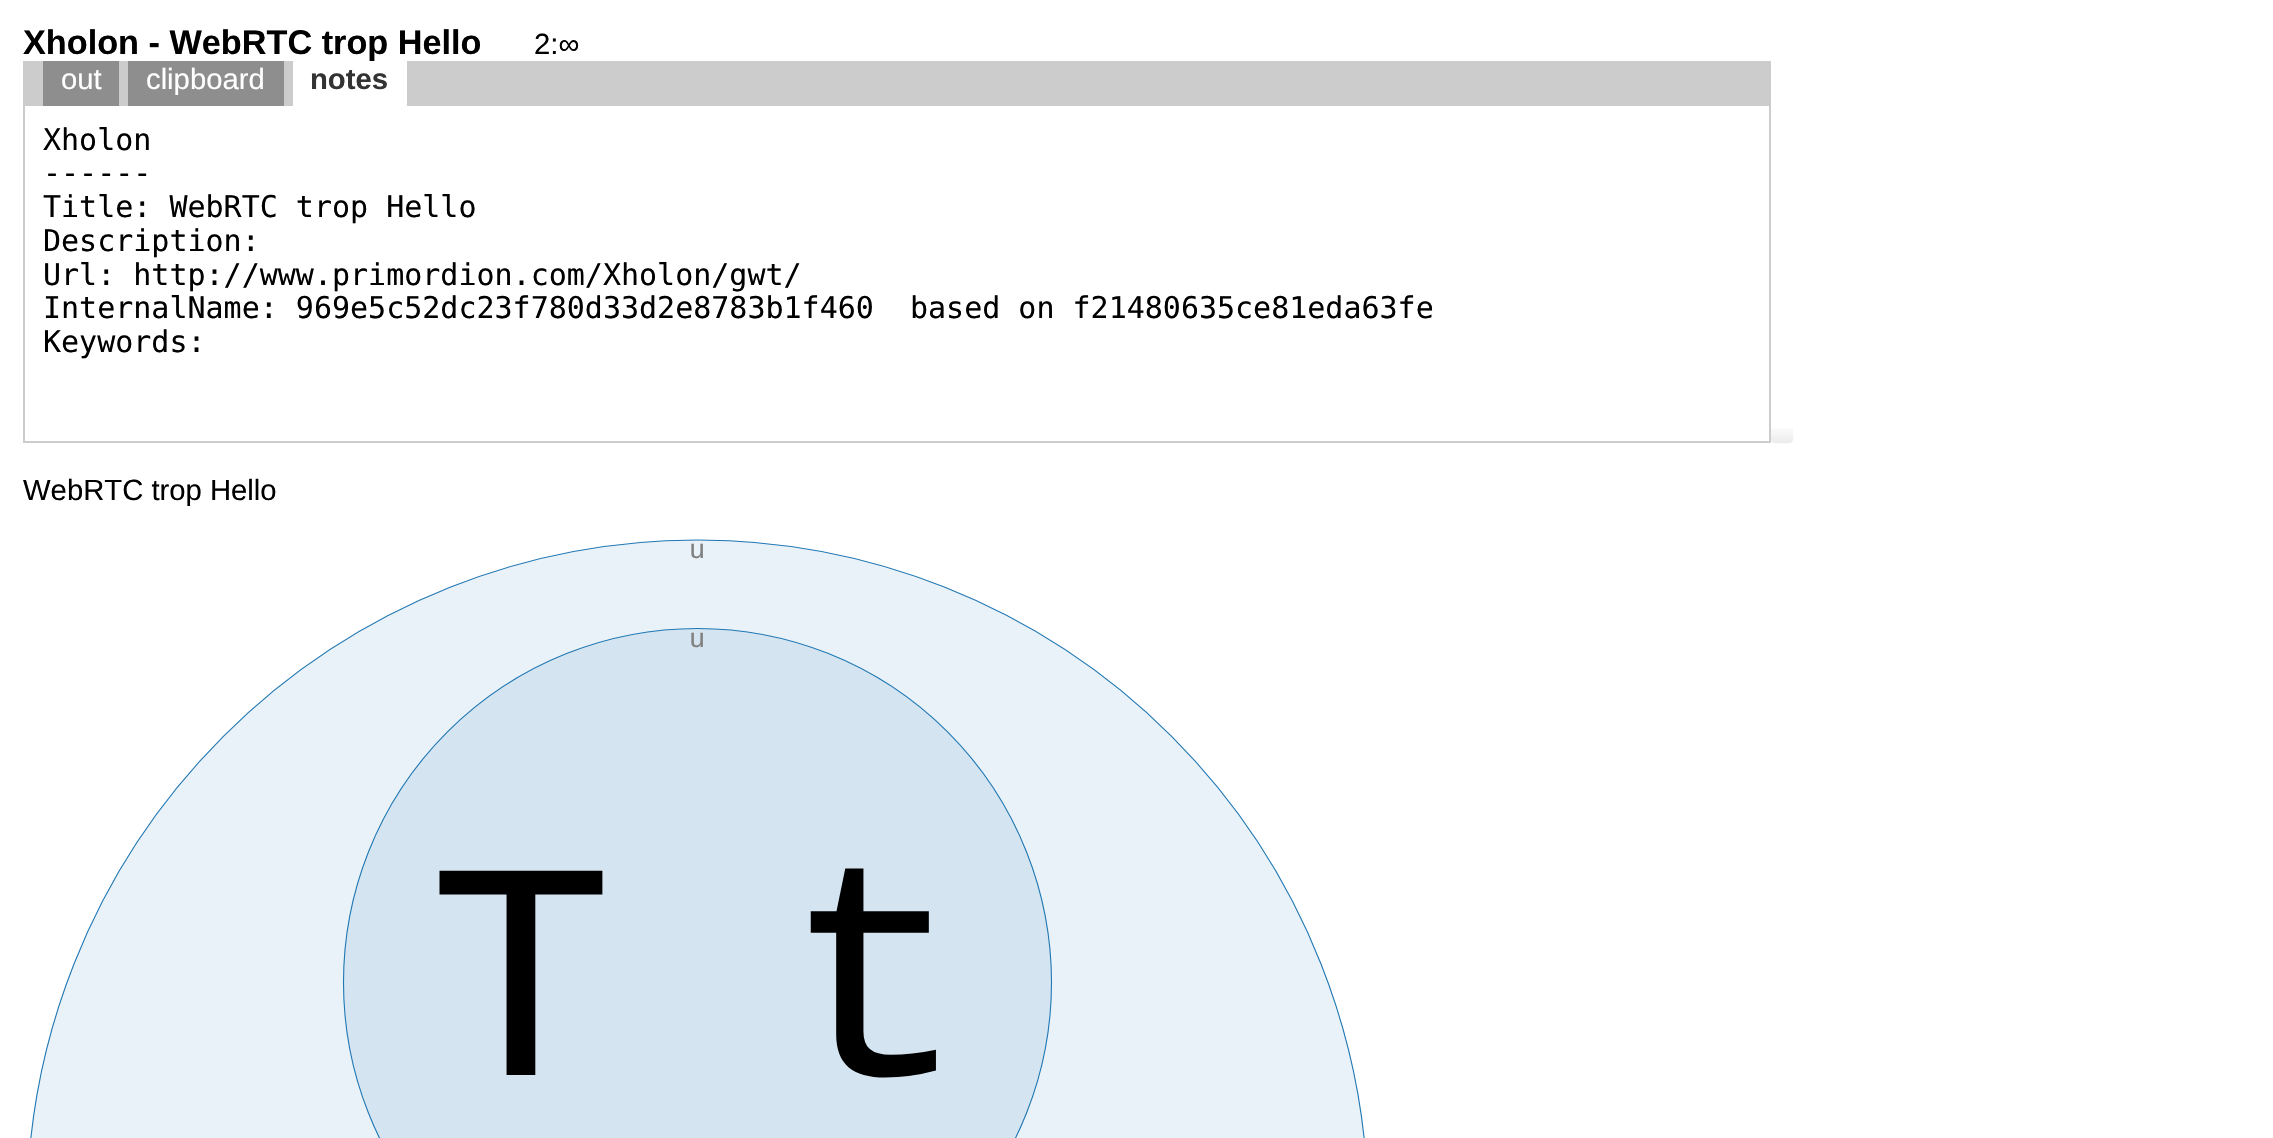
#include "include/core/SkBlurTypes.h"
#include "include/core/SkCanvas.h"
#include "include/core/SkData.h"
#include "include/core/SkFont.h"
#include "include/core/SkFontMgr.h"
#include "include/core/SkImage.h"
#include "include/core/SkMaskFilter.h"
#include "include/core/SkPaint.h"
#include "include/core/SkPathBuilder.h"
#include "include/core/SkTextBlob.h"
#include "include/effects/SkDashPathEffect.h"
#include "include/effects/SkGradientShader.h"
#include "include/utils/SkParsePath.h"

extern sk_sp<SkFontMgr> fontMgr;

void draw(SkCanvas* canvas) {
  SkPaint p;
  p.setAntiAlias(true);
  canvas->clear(SK_ColorWHITE);
  p.setColor(SkColorSetRGB(204, 204, 204));
  canvas->drawRect(SkRect::MakeLTRB(1769, 106, 1771, 443), p);
  canvas->drawRect(SkRect::MakeLTRB(23, 441, 1771, 443), p);
  canvas->drawRect(SkRect::MakeLTRB(23, 106, 25, 443), p);
  canvas->drawImageRect(SkImages::DeferredFromEncodedData(SkData::MakeFromFileName("images/1.png")), SkRect::MakeLTRB(1771, 428, 1794, 444), SkSamplingOptions());
  p.setColor(SkColorSetRGB(233, 242, 248));
  canvas->drawCircle(697.5f, 1210.5f, 670.5f, p);
  p.setStyle(SkPaint::kStroke_Style);
  p.setStrokeWidth(1.1f);
  p.setColor(SkColorSetRGB(31, 119, 180));
  canvas->drawCircle(697.5f, 1210.5f, 670.5f, p);
  p.setStyle(SkPaint::kFill_Style);
  p.setColor(SkColorSetRGB(212, 229, 241));
  canvas->drawCircle(697.5f, 982.5f, 354, p);
  p.setStyle(SkPaint::kStroke_Style);
  p.setColor(SkColorSetRGB(31, 119, 180));
  canvas->drawCircle(697.5f, 982.5f, 354, p);
  SkFont font1(fontMgr->matchFamilyStyle("Liberation Sans", SkFontStyle::Bold()), 34.25f);
  font1.setSubpixel(true);
  p.setStyle(SkPaint::kFill_Style);
  p.setColor(SK_ColorBLACK);
  canvas->drawString("Xholon - WebRTC trop Hello", 23, 54, font1, p);
  SkFont font2(fontMgr->matchFamilyStyle("Liberation Sans", SkFontStyle::Normal()), 29.25f);
  font2.setSubpixel(true);
  canvas->drawString("2:∞", 534, 54, font2, p);
  p.setColor(SkColorSetRGB(204, 204, 204));
  canvas->drawRect(SkRect::MakeLTRB(23, 61, 1771, 106), p);
  p.setColor(SkColorSetRGB(142, 142, 142));
  canvas->drawRect(SkRect::MakeLTRB(43, 61, 119, 106), p);
  p.setColor(SK_ColorWHITE);
  canvas->drawString("out", 61, 89, font2, p);
  p.setColor(SkColorSetRGB(142, 142, 142));
  canvas->drawRect(SkRect::MakeLTRB(128, 61, 284, 106), p);
  p.setColor(SK_ColorWHITE);
  canvas->drawString("clipboard", 146, 89, font2, p);
  canvas->drawRect(SkRect::MakeLTRB(293, 61, 407, 106), p);
  SkFont font3(fontMgr->matchFamilyStyle("Liberation Sans", SkFontStyle::Bold()), 29.25f);
  font3.setSubpixel(true);
  p.setColor(SkColorSetRGB(51, 51, 51));
  canvas->drawString("notes", 310, 89, font3, p);
  SkFont font4(fontMgr->matchFamilyStyle("DejaVu Sans Mono", SkFontStyle::Normal()), 30);
  font4.setSubpixel(true);
  p.setColor(SK_ColorBLACK);
  canvas->drawString("Xholon", 43, 150, font4, p);
  canvas->drawString("------", 43, 183, font4, p);
  canvas->drawString("Title: WebRTC trop Hello", 43, 217, font4, p);
  canvas->drawString("Description:", 43, 251, font4, p);
  canvas->drawString("Url: http://www.primordion.com/Xholon/gwt/", 43, 285, font4, p);
  canvas->drawString("InternalName: 969e5c52dc23f780d33d2e8783b1f460  based on f21480635ce81eda63fe", 43, 318, font4, p);
  canvas->drawString("Keywords:", 43, 352, font4, p);
  canvas->drawString("WebRTC trop Hello", 23, 500, font2, p);
  SkFont font5(fontMgr->matchFamilyStyle("Liberation Mono", SkFontStyle::Normal()), 27);
  font5.setSubpixel(true);
  p.setColor(SkColorSetRGB(128, 128, 128));
  canvas->drawString("u", 689, 558, font5, p);
  canvas->drawString("u", 689, 647, font5, p);
  SkFont font6(fontMgr->matchFamilyStyle("Liberation Mono", SkFontStyle::Normal()), 310);
  font6.setSubpixel(true);
  p.setColor(SK_ColorBLACK);
  canvas->drawString("T", 428, 1075, font6, p);
  canvas->drawString("t", 782, 1075, font6, p);
}
